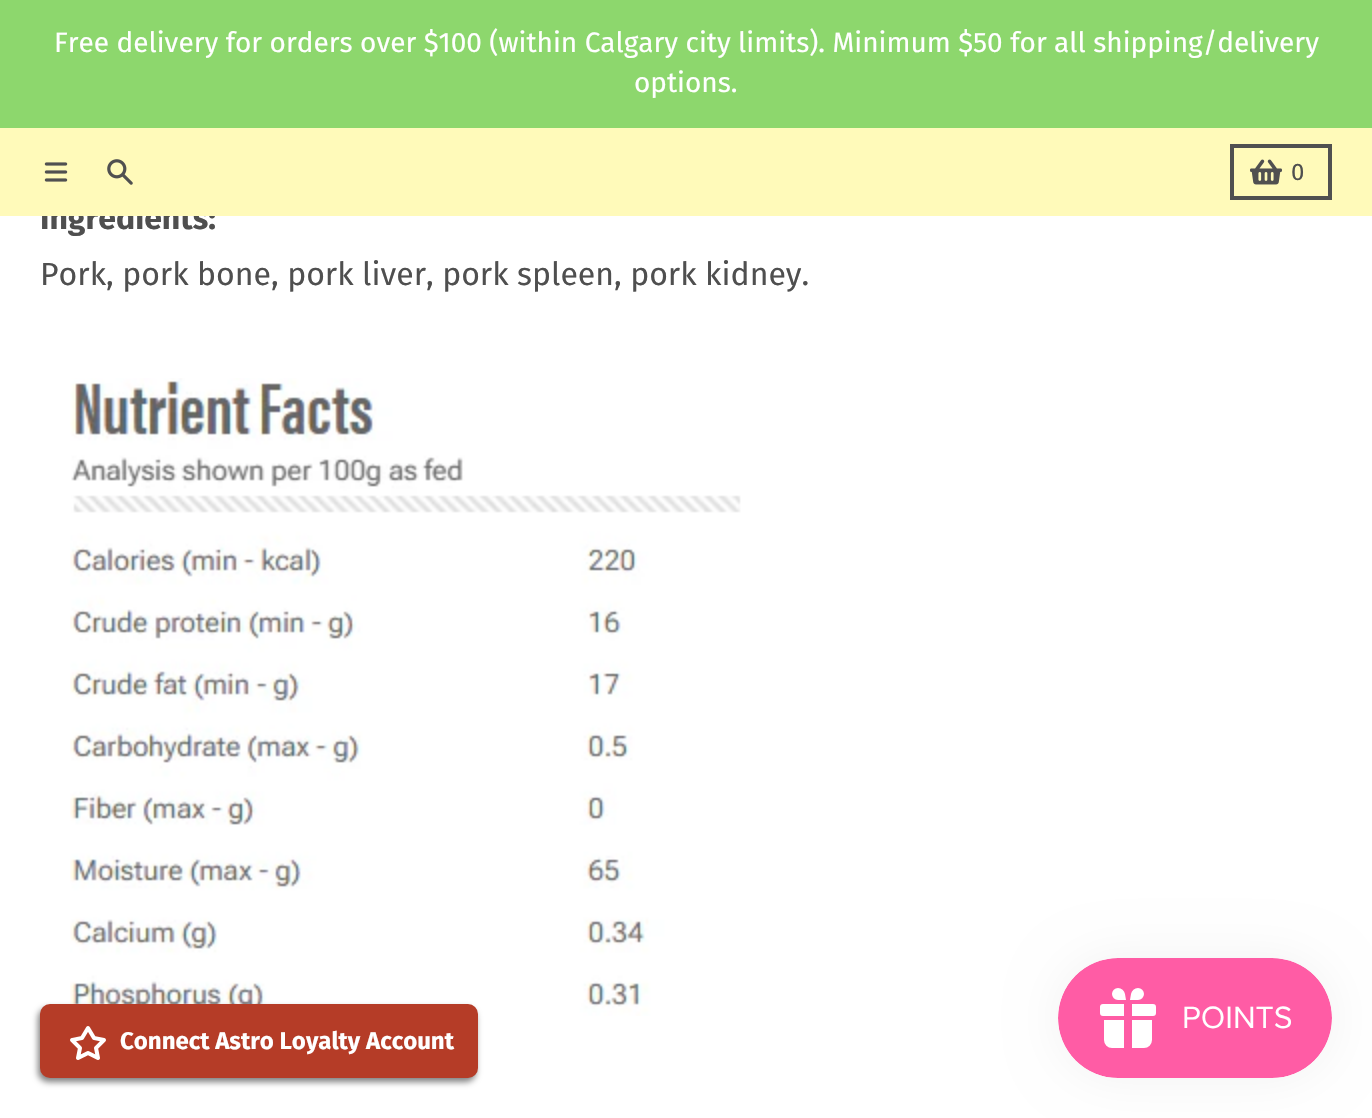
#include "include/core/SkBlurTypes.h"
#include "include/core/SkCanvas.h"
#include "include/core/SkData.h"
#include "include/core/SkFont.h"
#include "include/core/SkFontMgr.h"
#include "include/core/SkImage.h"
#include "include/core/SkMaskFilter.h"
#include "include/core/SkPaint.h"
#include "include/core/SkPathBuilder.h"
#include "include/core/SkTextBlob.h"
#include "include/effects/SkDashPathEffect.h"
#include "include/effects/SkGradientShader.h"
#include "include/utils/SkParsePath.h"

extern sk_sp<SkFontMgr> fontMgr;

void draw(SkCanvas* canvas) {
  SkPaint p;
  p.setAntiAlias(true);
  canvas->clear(SK_ColorWHITE);
  p.setColor(SkColorSetRGB(141, 215, 109));
  canvas->drawRect(SkRect::MakeLTRB(0, 0, 1372, 128), p);
  canvas->drawImageRect(SkImages::DeferredFromEncodedData(SkData::MakeFromFileName("images/4.png")), SkRect::MakeLTRB(70, 378, 741, 1016), SkSamplingOptions());
  p.setColor(SkColorSetARGB(128, 0, 0, 0));
  p.setMaskFilter(SkMaskFilter::MakeBlur(kNormal_SkBlurStyle, 3));
  canvas->drawRoundRect(SkRect::MakeLTRB(38, 1008, 476, 1082), 10, 10, p);
  p.setMaskFilter(nullptr);
  p.setColor(SkColorSetRGB(181, 60, 39));
  canvas->drawRoundRect(SkRect::MakeLTRB(40, 1004, 478, 1078), 10, 10, p);
  canvas->drawImageRect(SkImages::DeferredFromEncodedData(SkData::MakeFromFileName("images/5.png")), SkRect::MakeLTRB(70, 1026, 106, 1060), SkSamplingOptions());
  p.setColor(SkColorSetARGB(13, 0, 0, 0));
  p.setMaskFilter(SkMaskFilter::MakeBlur(kNormal_SkBlurStyle, 25));
  canvas->drawRoundRect(SkRect::MakeLTRB(1058, 958, 1332, 1078), 60, 60, p);
  p.setMaskFilter(nullptr);
  canvas->drawImageRect(SkImages::DeferredFromEncodedData(SkData::MakeFromFileName("images/6.png")), SkRect::MakeLTRB(1058, 958, 1332, 1078), SkSamplingOptions());
  SkFont font1(fontMgr->matchFamilyStyle("Fira Sans", SkFontStyle::Normal()), 28);
  font1.setSubpixel(true);
  p.setColor(SK_ColorWHITE);
  canvas->drawString("Free delivery for orders over $100 (within Calgary city limits). Minimum $50 for all shipping/delivery", 54, 52, font1, p);
  canvas->drawString("options.", 634, 92, font1, p);
  SkFont font2(fontMgr->matchFamilyStyle("Fira Sans", SkFontStyle::Bold()), 32);
  font2.setSubpixel(true);
  p.setColor(SkColorSetRGB(79, 79, 79));
  canvas->drawString("Ingredients:", 40, 229, font2, p);
  p.setColor(SkColorSetRGB(255, 250, 186));
  canvas->drawRect(SkRect::MakeLTRB(0, 128, 1372, 216), p);
  p.setStyle(SkPaint::kStroke_Style);
  p.setStrokeWidth(4);
  p.setColor(SkColorSetRGB(80, 80, 80));
  canvas->drawRect(SkRect::MakeLTRB(1232, 146, 1330, 198), p);
  canvas->drawImageRect(SkImages::DeferredFromEncodedData(SkData::MakeFromFileName("images/3.png")), SkRect::MakeLTRB(1250, 159, 1282, 185), SkSamplingOptions());
  SkFont font3(fontMgr->matchFamilyStyle("Fira Sans", SkFontStyle::Normal()), 24);
  font3.setSubpixel(true);
  p.setStyle(SkPaint::kFill_Style);
  p.setColor(SkColorSetRGB(79, 79, 79));
  canvas->drawString("0", 1291, 180, font3, p);
  canvas->drawImageRect(SkImages::DeferredFromEncodedData(SkData::MakeFromFileName("images/2.png")), SkRect::MakeLTRB(107, 159, 133, 185), SkSamplingOptions());
  canvas->drawImageRect(SkImages::DeferredFromEncodedData(SkData::MakeFromFileName("images/1.png")), SkRect::MakeLTRB(44, 162, 68, 182), SkSamplingOptions());
  SkFont font4(fontMgr->matchFamilyStyle("Fira Sans", SkFontStyle::Normal()), 32);
  font4.setSubpixel(true);
  canvas->drawString("Pork, pork bone, pork liver, pork spleen, pork kidney.", 40, 285, font4, p);
  SkFont font5(fontMgr->matchFamilyStyle("Fira Sans", SkFontStyle::Bold()), 24);
  font5.setSubpixel(true);
  p.setColor(SK_ColorWHITE);
  canvas->drawString("Connect Astro Loyalty Account", 120, 1049, font5, p);
}
